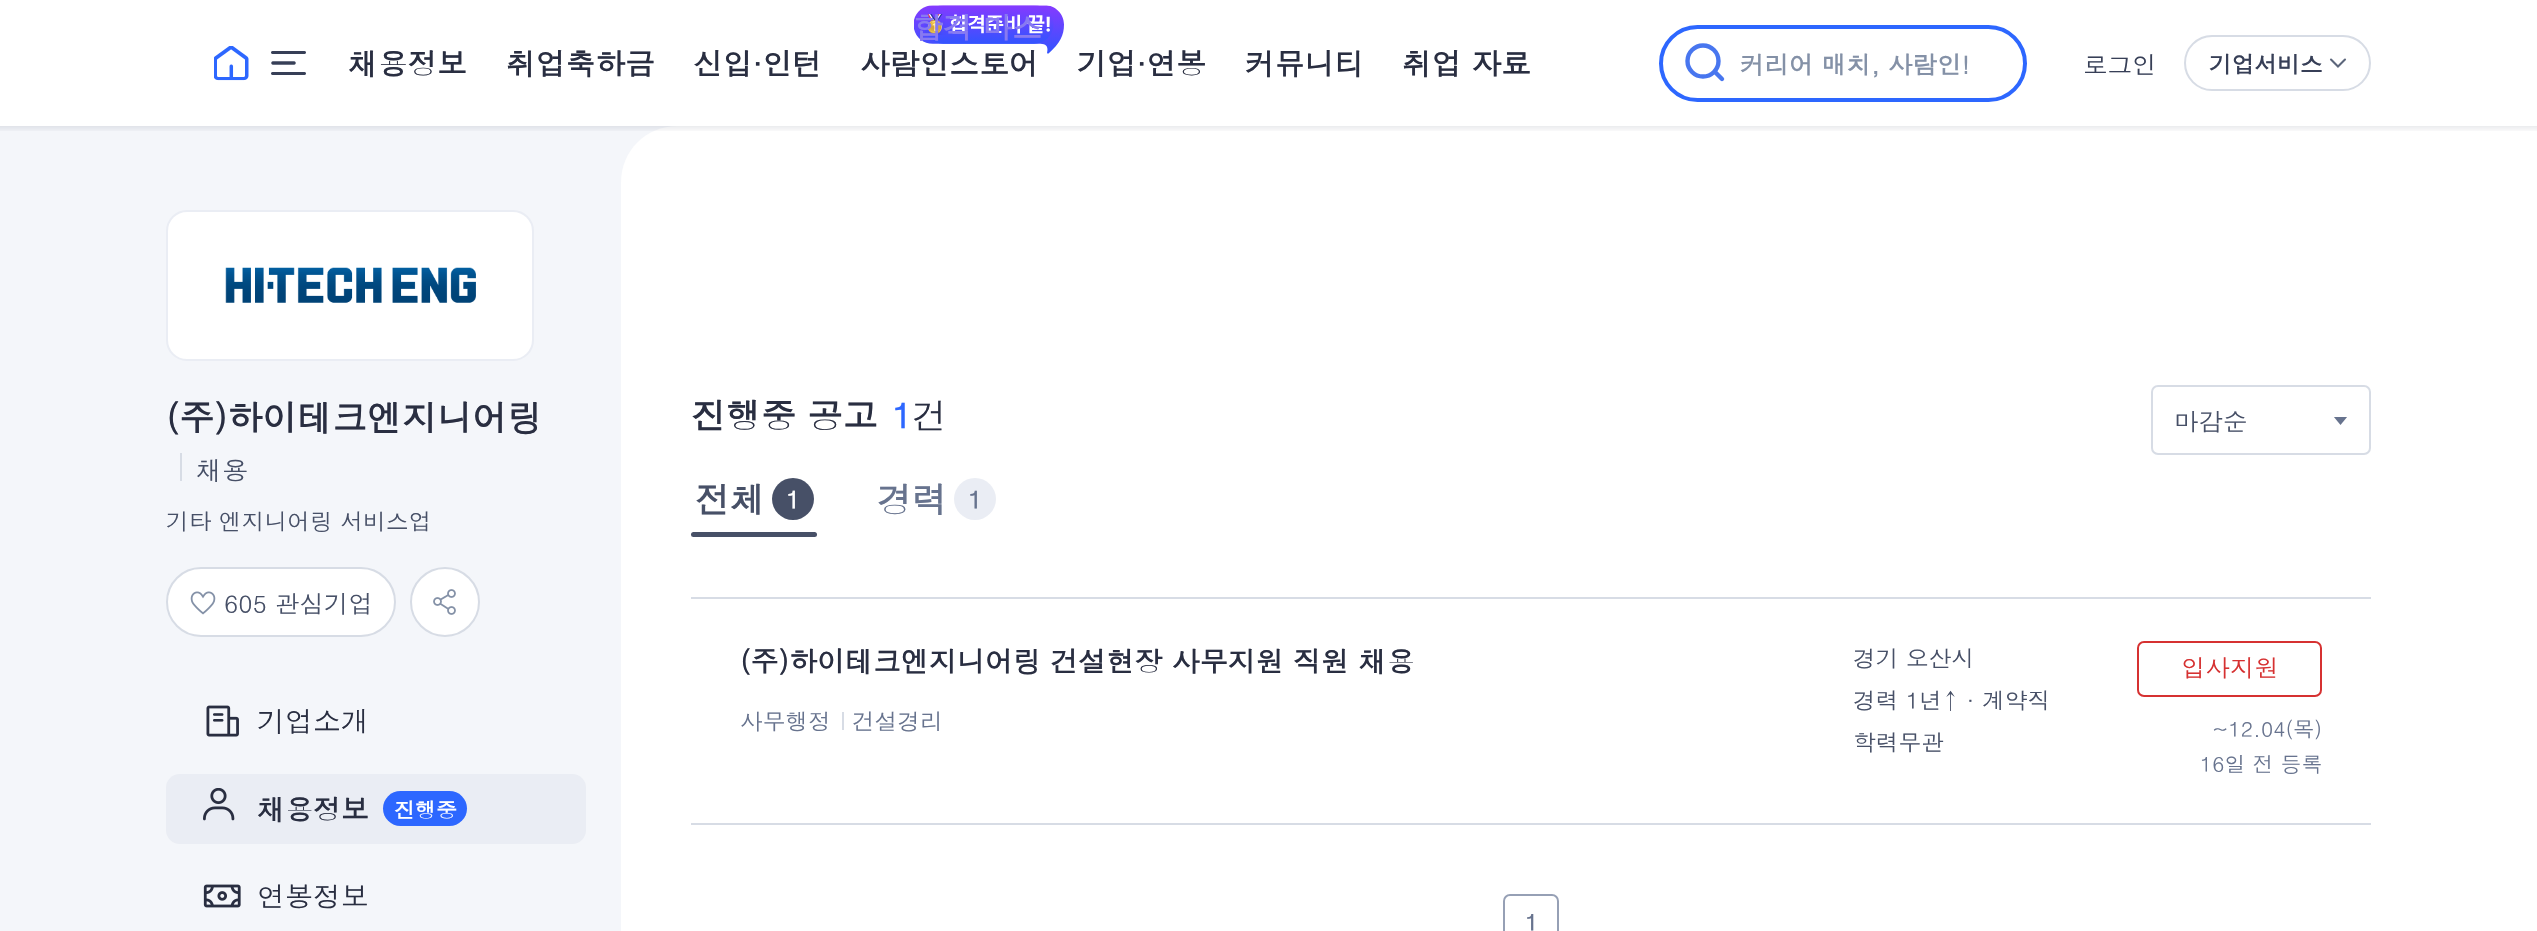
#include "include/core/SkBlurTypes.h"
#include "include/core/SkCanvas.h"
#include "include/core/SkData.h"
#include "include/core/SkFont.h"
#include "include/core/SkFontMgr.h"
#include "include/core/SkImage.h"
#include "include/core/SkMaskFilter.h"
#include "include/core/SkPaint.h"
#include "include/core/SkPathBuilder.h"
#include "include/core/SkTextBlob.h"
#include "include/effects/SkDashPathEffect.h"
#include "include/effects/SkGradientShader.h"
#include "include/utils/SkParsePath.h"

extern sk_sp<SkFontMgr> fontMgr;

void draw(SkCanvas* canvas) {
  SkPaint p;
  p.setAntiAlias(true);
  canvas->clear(SK_ColorWHITE);
  canvas->drawImageRect(SkImages::DeferredFromEncodedData(SkData::MakeFromFileName("images/1.png")), SkRect::MakeLTRB(214, 46, 249, 81), SkSamplingOptions());
  canvas->drawImageRect(SkImages::DeferredFromEncodedData(SkData::MakeFromFileName("images/2.png")), SkRect::MakeLTRB(271, 51, 306, 75), SkSamplingOptions());
  canvas->drawImageRect(SkImages::DeferredFromEncodedData(SkData::MakeFromFileName("images/3.png")), SkRect::MakeLTRB(914, 5, 1064, 54), SkSamplingOptions());
  p.setStyle(SkPaint::kStroke_Style);
  p.setStrokeWidth(4);
  p.setColor(SkColorSetRGB(45, 103, 255));
  canvas->drawRoundRect(SkRect::MakeLTRB(1661, 27, 2025, 100), 36.5f, 36.5f, p);
  p.setStrokeWidth(4.4f);
  p.setColor(SkColorSetRGB(72, 118, 239));
  canvas->drawCircle(1703, 61, 15.5f, p);
  p.setStrokeCap(SkPaint::kRound_Cap);
  canvas->drawPath(SkPathBuilder().moveTo(1722, 79).lineTo(1715, 72).detach(), p);
  p.setStrokeWidth(2);
  p.setStrokeCap(SkPaint::kButt_Cap);
  p.setColor(SkColorSetRGB(215, 220, 229));
  canvas->drawRoundRect(SkRect::MakeLTRB(2185, 36, 2370, 90), 27, 27, p);
  p.setStrokeWidth(2.1f);
  p.setStrokeCap(SkPaint::kRound_Cap);
  p.setColor(SkColorSetRGB(92, 102, 123));
  canvas->drawPath(SkPathBuilder().moveTo(2331, 59.5f).lineTo(2338, 66.5f).lineTo(2345, 59.5f).detach(), p);
  p.setStyle(SkPaint::kFill_Style);
  p.setColor(SkColorSetRGB(244, 246, 250));
  canvas->drawRect(SkRect::MakeLTRB(0, 126, 677, 931), p);
  p.setColor(SK_ColorWHITE);
  canvas->drawPath(SkPathBuilder().moveTo(677, 126).lineTo(2371, 126).lineTo(2371, 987).lineTo(621, 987).lineTo(621, 182).cubicTo(621, 151, 646, 126, 677, 126).close().detach(), p);
  {
    const SkColor colors[] = {SkColorSetARGB(0, 55, 63, 87), SkColorSetARGB(26, 55, 63, 87)};
    const float stops[] = {0, 1};
    const SkPoint ends[] = {{1269, 133}, {1269, 126}};
    p.setShader(SkGradientShader::MakeLinear(ends, colors, stops, 2, SkTileMode::kClamp));
    p.setAlpha(255);
  }
  canvas->drawRect(SkRect::MakeLTRB(0, 126, 2537, 131), p);
  p.setShader(nullptr);
  p.setColor(SK_ColorWHITE);
  canvas->drawRoundRect(SkRect::MakeLTRB(167, 211, 533, 360), 20, 20, p);
  p.setStyle(SkPaint::kStroke_Style);
  p.setStrokeWidth(2);
  p.setStrokeCap(SkPaint::kButt_Cap);
  p.setColor(SkColorSetRGB(234, 237, 244));
  canvas->drawRoundRect(SkRect::MakeLTRB(167, 211, 533, 360), 20, 20, p);
  canvas->drawImageRect(SkImages::DeferredFromEncodedData(SkData::MakeFromFileName("images/4.png")), SkRect::MakeLTRB(225, 267, 476, 303), SkSamplingOptions());
  p.setStyle(SkPaint::kFill_Style);
  p.setColor(SkColorSetRGB(215, 220, 229));
  canvas->drawRect(SkRect::MakeLTRB(180, 453, 182, 481), p);
  p.setColor(SK_ColorWHITE);
  canvas->drawRoundRect(SkRect::MakeLTRB(167, 568, 395, 636), 34, 34, p);
  p.setStyle(SkPaint::kStroke_Style);
  p.setColor(SkColorSetRGB(215, 220, 229));
  canvas->drawRoundRect(SkRect::MakeLTRB(167, 568, 395, 636), 34, 34, p);
  canvas->drawImageRect(SkImages::DeferredFromEncodedData(SkData::MakeFromFileName("images/5.png")), SkRect::MakeLTRB(190, 591, 216, 615), SkSamplingOptions());
  p.setStyle(SkPaint::kFill_Style);
  p.setColor(SK_ColorWHITE);
  canvas->drawCircle(445, 602, 34, p);
  p.setStyle(SkPaint::kStroke_Style);
  p.setColor(SkColorSetRGB(215, 220, 229));
  canvas->drawCircle(445, 602, 34, p);
  canvas->drawImageRect(SkImages::DeferredFromEncodedData(SkData::MakeFromFileName("images/6.png")), SkRect::MakeLTRB(433, 589, 456, 615), SkSamplingOptions());
  canvas->drawImageRect(SkImages::DeferredFromEncodedData(SkData::MakeFromFileName("images/7.png")), SkRect::MakeLTRB(206, 705, 239, 737), SkSamplingOptions());
  p.setStyle(SkPaint::kFill_Style);
  p.setColor(SkColorSetRGB(234, 237, 244));
  canvas->drawRoundRect(SkRect::MakeLTRB(166, 774, 586, 844), 14, 14, p);
  canvas->drawImageRect(SkImages::DeferredFromEncodedData(SkData::MakeFromFileName("images/8.png")), SkRect::MakeLTRB(203, 788, 235, 821), SkSamplingOptions());
  p.setColor(SkColorSetRGB(45, 103, 255));
  canvas->drawRoundRect(SkRect::MakeLTRB(383, 791, 467, 826), 17.5f, 17.5f, p);
  canvas->drawImageRect(SkImages::DeferredFromEncodedData(SkData::MakeFromFileName("images/9.png")), SkRect::MakeLTRB(203, 884, 241, 908), SkSamplingOptions());
  canvas->save();
  canvas->clipRect(SkRect::MakeLTRB(2333, 417, 2349, 425));
  p.setColor(SkColorSetRGB(103, 115, 142));
  canvas->drawPath(SkPathBuilder(SkPathFillType::kEvenOdd).moveTo(2333.5f, 416.5f).lineTo(2347.5f, 416.5f).lineTo(2340.5f, 425).close().detach(), p);
  canvas->restore();
  p.setStyle(SkPaint::kStroke_Style);
  p.setColor(SkColorSetRGB(215, 220, 229));
  canvas->drawRoundRect(SkRect::MakeLTRB(2152, 386, 2370, 454), 6, 6, p);
  p.setStyle(SkPaint::kFill_Style);
  p.setColor(SkColorSetRGB(71, 80, 103));
  canvas->drawCircle(793, 499, 21, p);
  canvas->drawRoundRect(SkRect::MakeLTRB(691, 532, 817, 537), 2.5f, 2.5f, p);
  p.setColor(SkColorSetRGB(234, 237, 244));
  canvas->drawCircle(975, 499, 21, p);
  p.setColor(SkColorSetRGB(215, 220, 229));
  canvas->drawRect(SkRect::MakeLTRB(691, 597, 2371, 599), p);
  canvas->drawRect(SkRect::MakeLTRB(691, 823, 2371, 825), p);
  canvas->drawRect(SkRect::MakeLTRB(842, 712, 844, 730), p);
  p.setStyle(SkPaint::kStroke_Style);
  p.setColor(SkColorSetRGB(214, 49, 49));
  canvas->drawRoundRect(SkRect::MakeLTRB(2138, 642, 2321, 696), 6, 6, p);
  p.setColor(SkColorSetRGB(150, 160, 181));
  canvas->drawRoundRect(SkRect::MakeLTRB(1504, 895, 1558, 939), 6, 6, p);
  SkFont font1(fontMgr->matchFamilyStyle("Dotum", SkFontStyle::Bold()), 29.75f);
  font1.setSubpixel(true);
  p.setStyle(SkPaint::kFill_Style);
  p.setColor(SkColorSetRGB(41, 46, 65));
  canvas->drawString("채용정보", 348, 75, font1, p);
  canvas->drawString("취업축하금", 506, 75, font1, p);
  canvas->drawString("신입·인턴", 693, 75, font1, p);
  p.setColor(SkColorSetRGB(136, 122, 241));
  canvas->drawString("합격 마스", 913, 39, font1, p);
  p.setColor(SkColorSetRGB(41, 46, 65));
  canvas->drawString("사람인스토어", 860, 75, font1, p);
  canvas->drawString("기업·연봉", 1077, 75, font1, p);
  canvas->drawString("커뮤니티", 1245, 75, font1, p);
  canvas->drawString("취업 자료", 1402, 75, font1, p);
  SkFont font2(fontMgr->matchFamilyStyle("Dotum", SkFontStyle::Bold()), 24.5f);
  font2.setSubpixel(true);
  p.setColor(SkColorSetRGB(132, 145, 167));
  canvas->drawString("커리어 매치, 사람인!", 1740, 74, font2, p);
  SkFont font3(fontMgr->matchFamilyStyle("Dotum", SkFontStyle::Normal()), 24.5f);
  font3.setSubpixel(true);
  p.setColor(SkColorSetRGB(55, 63, 87));
  canvas->drawString("로그인", 2083, 74, font3, p);
  SkFont font4(fontMgr->matchFamilyStyle("Dotum", SkFontStyle::Bold()), 22.75f);
  font4.setSubpixel(true);
  canvas->drawString("기업서비스", 2209, 73, font4, p);
  SkFont font5(fontMgr->matchFamilyStyle("Dotum", SkFontStyle::Bold()), 35);
  font5.setSubpixel(true);
  p.setColor(SkColorSetRGB(41, 46, 65));
  canvas->drawString("(주)하이테크엔지니어링", 166, 431, font5, p);
  SkFont font6(fontMgr->matchFamilyStyle("Dotum", SkFontStyle::Normal()), 26);
  font6.setSubpixel(true);
  p.setColor(SkColorSetRGB(71, 80, 103));
  canvas->drawString("채용", 196, 480, font6, p);
  SkFont font7(fontMgr->matchFamilyStyle("Dotum", SkFontStyle::Normal()), 22.75f);
  font7.setSubpixel(true);
  canvas->drawString("기타 엔지니어링 서비스업", 166, 530, font7, p);
  canvas->drawString("605 관심기업", 224, 613, font3, p);
  SkFont font8(fontMgr->matchFamilyStyle("Dotum", SkFontStyle::Normal()), 28);
  font8.setSubpixel(true);
  p.setColor(SkColorSetRGB(41, 46, 65));
  canvas->drawString("기업소개", 257, 732, font8, p);
  SkFont font9(fontMgr->matchFamilyStyle("Dotum", SkFontStyle::Bold()), 28);
  font9.setSubpixel(true);
  canvas->drawString("채용정보", 257, 820, font9, p);
  SkFont font10(fontMgr->matchFamilyStyle("Dotum", SkFontStyle::Bold()), 21);
  font10.setSubpixel(true);
  p.setColor(SK_ColorWHITE);
  canvas->drawString("진행중", 394, 818, font10, p);
  p.setColor(SkColorSetRGB(41, 46, 65));
  canvas->drawString("연봉정보", 257, 907, font8, p);
  canvas->drawString("진행중 공고", 691, 429, font5, p);
  p.setColor(SkColorSetRGB(45, 103, 255));
  canvas->drawString("1", 892, 429, font5, p);
  SkFont font11(fontMgr->matchFamilyStyle("Dotum", SkFontStyle::Normal()), 35);
  font11.setSubpixel(true);
  p.setColor(SkColorSetRGB(41, 46, 65));
  canvas->drawString("건", 912, 429, font11, p);
  p.setColor(SkColorSetRGB(71, 80, 103));
  canvas->drawString("마감순", 2174, 431, font3, p);
  canvas->drawString("전체", 695, 513, font5, p);
  p.setColor(SK_ColorWHITE);
  canvas->drawString("1", 786, 509, font2, p);
  p.setColor(SkColorSetRGB(103, 115, 142));
  canvas->drawString("경력", 877, 513, font5, p);
  canvas->drawString("1", 968, 509, font2, p);
  p.setColor(SkColorSetRGB(41, 46, 65));
  canvas->drawString("(주)하이테크엔지니어링 건설현장 사무지원 직원 채용", 740, 672, font9, p);
  p.setColor(SkColorSetRGB(103, 115, 142));
  canvas->drawString("사무행정", 740, 730, font7, p);
  canvas->drawString("건설경리", 852, 730, font7, p);
  p.setColor(SkColorSetRGB(71, 80, 103));
  canvas->drawString("경기 오산시", 1853, 667, font7, p);
  canvas->drawString("경력 1년↑ · 계약직", 1853, 709, font7, p);
  canvas->drawString("학력무관", 1853, 751, font7, p);
  p.setColor(SkColorSetRGB(214, 49, 49));
  canvas->drawString("입사지원", 2181, 677, font3, p);
  SkFont font12(fontMgr->matchFamilyStyle("Dotum", SkFontStyle::Normal()), 21);
  font12.setSubpixel(true);
  p.setColor(SkColorSetRGB(103, 115, 142));
  canvas->drawString("~12.04(목)", 2212, 737, font12, p);
  canvas->drawString("16일 전 등록", 2200, 772, font12, p);
  canvas->drawString("1", 1525, 931, font4, p);
}
